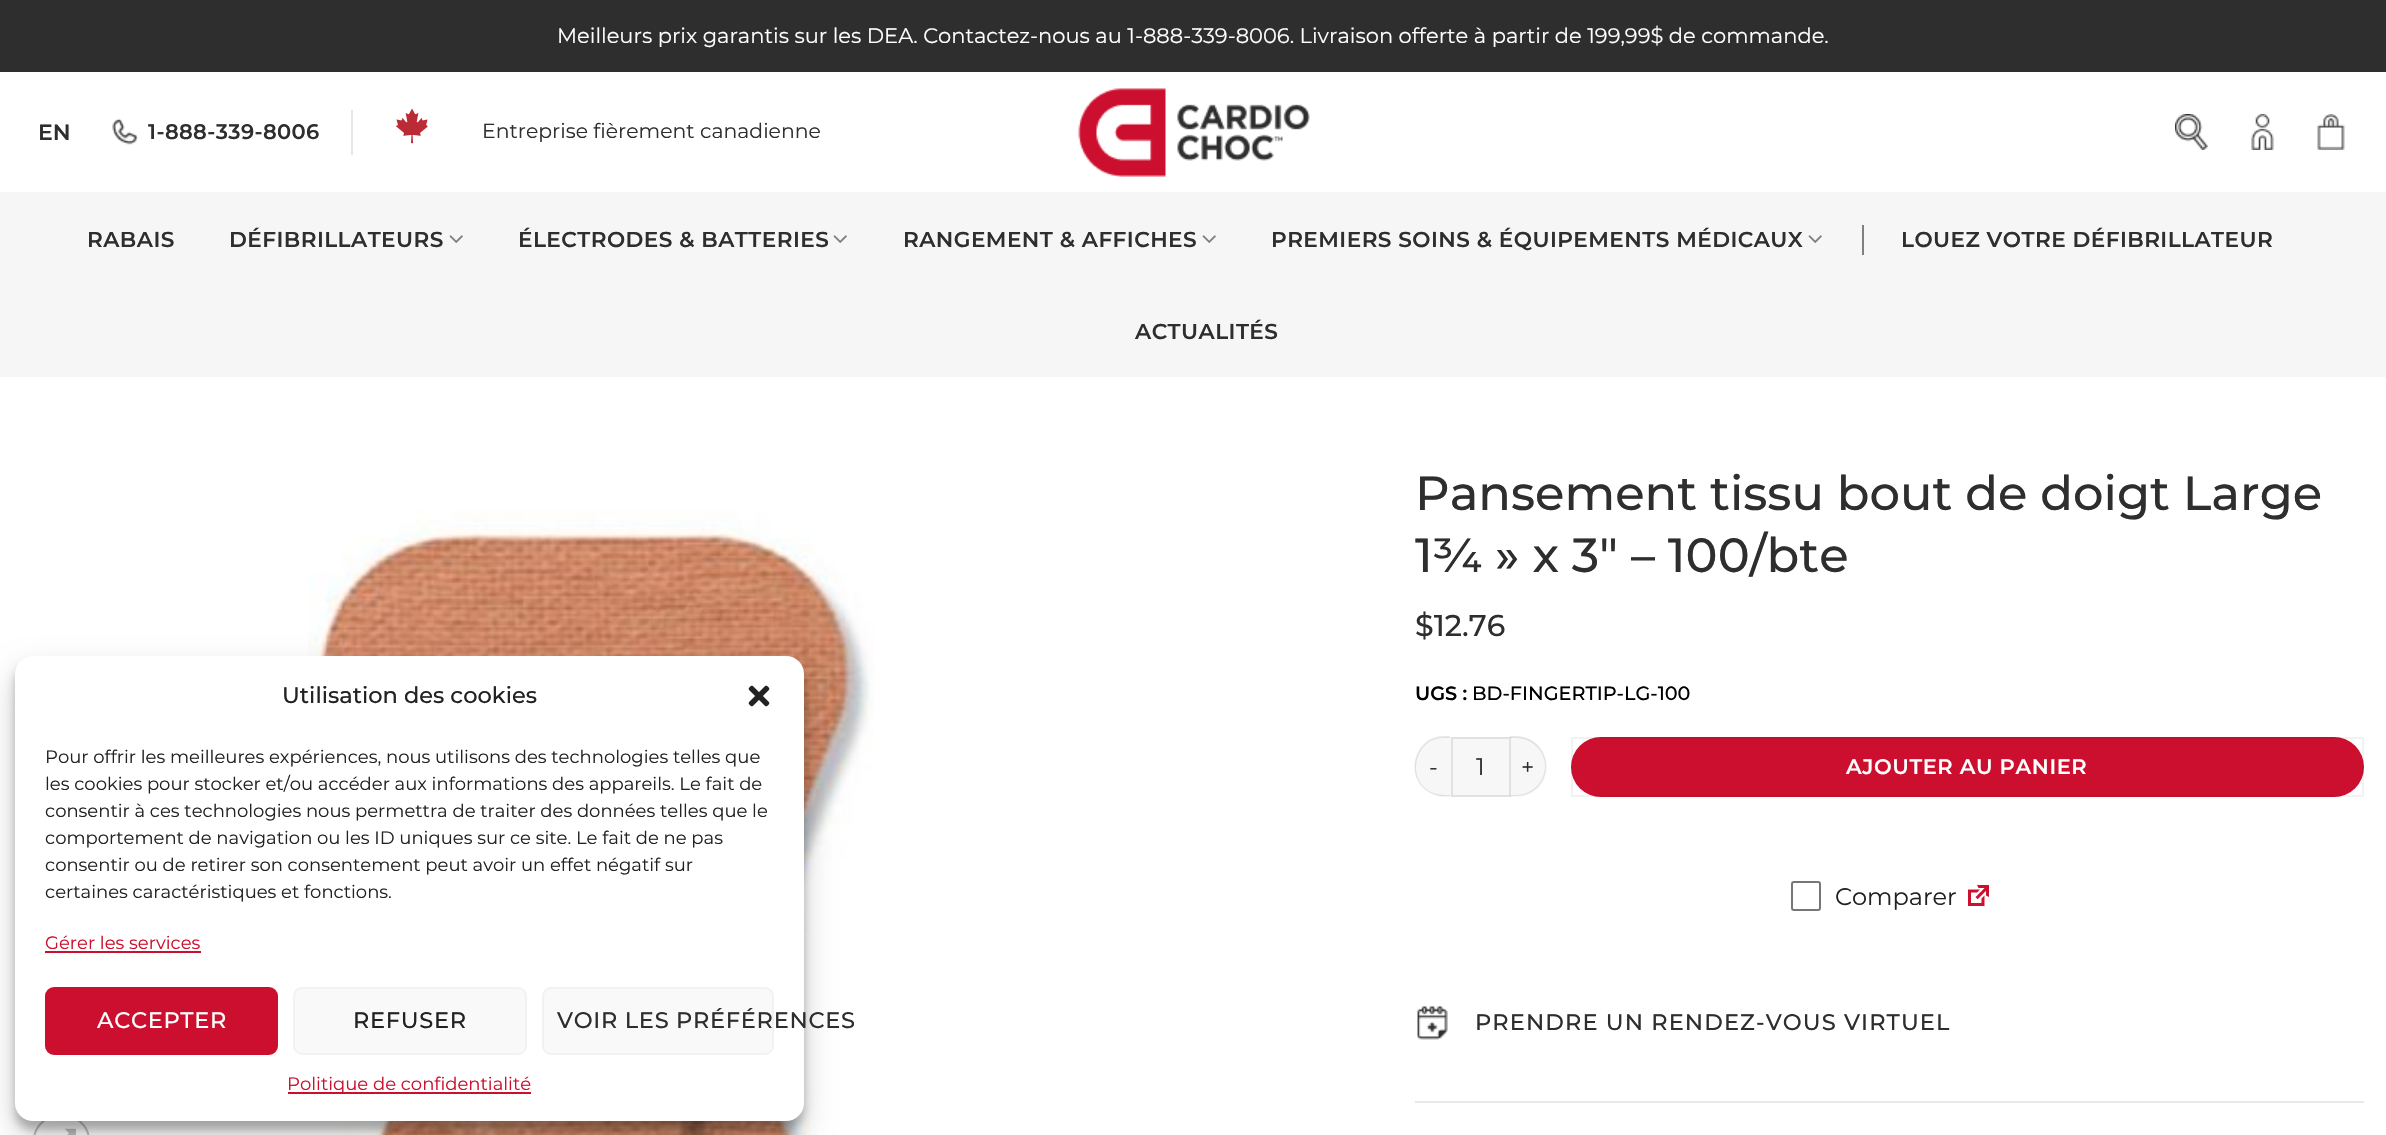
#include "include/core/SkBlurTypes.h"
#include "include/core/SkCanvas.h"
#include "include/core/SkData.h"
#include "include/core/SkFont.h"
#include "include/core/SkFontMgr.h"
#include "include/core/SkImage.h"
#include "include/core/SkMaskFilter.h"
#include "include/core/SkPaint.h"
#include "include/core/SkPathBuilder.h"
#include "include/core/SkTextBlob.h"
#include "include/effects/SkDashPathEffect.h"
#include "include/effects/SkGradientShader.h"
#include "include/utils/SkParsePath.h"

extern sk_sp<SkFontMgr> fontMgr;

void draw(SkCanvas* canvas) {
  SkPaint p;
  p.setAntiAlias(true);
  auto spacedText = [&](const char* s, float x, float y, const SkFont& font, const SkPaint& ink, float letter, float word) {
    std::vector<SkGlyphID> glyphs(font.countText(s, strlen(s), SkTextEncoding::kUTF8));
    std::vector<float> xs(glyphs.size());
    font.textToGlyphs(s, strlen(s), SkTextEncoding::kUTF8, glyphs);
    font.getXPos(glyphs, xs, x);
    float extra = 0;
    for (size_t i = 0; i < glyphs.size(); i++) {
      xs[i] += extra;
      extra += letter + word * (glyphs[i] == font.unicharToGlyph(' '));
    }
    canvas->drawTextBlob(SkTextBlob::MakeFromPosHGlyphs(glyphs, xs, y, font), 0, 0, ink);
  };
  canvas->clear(SK_ColorWHITE);
  p.setColor(SkColorSetRGB(46, 46, 46));
  canvas->drawRect(SkRect::MakeLTRB(0, 0, 2386, 72), p);
  canvas->drawImageRect(SkImages::DeferredFromEncodedData(SkData::MakeFromFileName("images/1.png")), SkRect::MakeLTRB(112, 118, 138, 145), SkSamplingOptions());
  p.setColor(SkColorSetRGB(230, 230, 230));
  canvas->drawRect(SkRect::MakeLTRB(351, 110, 353, 155), p);
  canvas->drawImageRect(SkImages::DeferredFromEncodedData(SkData::MakeFromFileName("images/2.png")), SkRect::MakeLTRB(396, 108, 428, 144), SkSamplingOptions());
  canvas->drawImageRect(SkImages::DeferredFromEncodedData(SkData::MakeFromFileName("images/3.png")), SkRect::MakeLTRB(1078, 88, 1310, 177), SkSamplingOptions());
  canvas->drawImageRect(SkImages::DeferredFromEncodedData(SkData::MakeFromFileName("images/4.png")), SkRect::MakeLTRB(2175, 114, 2208, 150), SkSamplingOptions());
  canvas->drawImageRect(SkImages::DeferredFromEncodedData(SkData::MakeFromFileName("images/5.png")), SkRect::MakeLTRB(2251, 114, 2274, 150), SkSamplingOptions());
  canvas->drawImageRect(SkImages::DeferredFromEncodedData(SkData::MakeFromFileName("images/6.png")), SkRect::MakeLTRB(2317, 114, 2345, 150), SkSamplingOptions());
  p.setColor(SkColorSetRGB(246, 246, 246));
  canvas->drawRect(SkRect::MakeLTRB(0, 192, 2386, 377), p);
  canvas->drawImageRect(SkImages::DeferredFromEncodedData(SkData::MakeFromFileName("images/7.png")), SkRect::MakeLTRB(449, 235, 463, 243), SkSamplingOptions());
  canvas->drawImageRect(SkImages::DeferredFromEncodedData(SkData::MakeFromFileName("images/7.png")), SkRect::MakeLTRB(833, 235, 847, 243), SkSamplingOptions());
  canvas->drawImageRect(SkImages::DeferredFromEncodedData(SkData::MakeFromFileName("images/7.png")), SkRect::MakeLTRB(1202, 235, 1216, 243), SkSamplingOptions());
  canvas->drawImageRect(SkImages::DeferredFromEncodedData(SkData::MakeFromFileName("images/7.png")), SkRect::MakeLTRB(1808, 235, 1822, 243), SkSamplingOptions());
  p.setColor(SkColorSetRGB(128, 128, 128));
  canvas->drawRect(SkRect::MakeLTRB(1862, 225, 1864, 255), p);
  canvas->drawImageRect(SkImages::DeferredFromEncodedData(SkData::MakeFromFileName("images/8.png")), SkRect::MakeLTRB(308, 510, 874, 1135), SkSamplingOptions());
  p.setStyle(SkPaint::kStroke_Style);
  p.setStrokeWidth(2);
  p.setColor(SkColorSetRGB(192, 192, 192));
  canvas->drawRoundRect(SkRect::MakeLTRB(34, 1116, 89, 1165), 27.5f, 27.5f, p);
  canvas->drawImageRect(SkImages::DeferredFromEncodedData(SkData::MakeFromFileName("images/9.png")), SkRect::MakeLTRB(64, 1128, 76, 1135), SkSamplingOptions());
  p.setStyle(SkPaint::kFill_Style);
  p.setColor(SkColorSetRGB(247, 247, 247));
  canvas->drawPath(SkPathBuilder().moveTo(1445, 737).lineTo(1451, 737).lineTo(1451, 797).lineTo(1445, 797).cubicTo(1428.5f, 797, 1415, 783.5f, 1415, 767).cubicTo(1415, 750.5f, 1428.5f, 737, 1445, 737).close().detach(), p);
  p.setColor(SkColorSetARGB(23, 0, 0, 0));
  canvas->drawPath(SkPathBuilder(SkPathFillType::kEvenOdd).moveTo(1444, 736).lineTo(1450, 736).lineTo(1450, 796).cubicTo(1444, 796, 1439, 797, 1433, 794).cubicTo(1403, 782, 1412, 736, 1444, 736).close().moveTo(1444, 738).lineTo(1450, 738).lineTo(1450, 795).cubicTo(1445, 795, 1439, 795, 1433, 793).cubicTo(1405, 781, 1414, 738, 1444, 738).close().detach(), p);
  p.setColor(SkColorSetRGB(247, 247, 247));
  canvas->drawRect(SkRect::MakeLTRB(1452, 738, 1510, 796), p);
  p.setStyle(SkPaint::kStroke_Style);
  p.setColor(SkColorSetRGB(225, 225, 225));
  canvas->drawRect(SkRect::MakeLTRB(1452, 738, 1510, 796), p);
  p.setStyle(SkPaint::kFill_Style);
  p.setColor(SkColorSetRGB(247, 247, 247));
  canvas->drawPath(SkPathBuilder().moveTo(1511, 737).lineTo(1517, 737).cubicTo(1533.5f, 737, 1547, 750.5f, 1547, 767).cubicTo(1547, 783.5f, 1533.5f, 797, 1517, 797).lineTo(1511, 797).close().detach(), p);
  p.setColor(SkColorSetARGB(23, 0, 0, 0));
  canvas->drawPath(SkPathBuilder(SkPathFillType::kEvenOdd).moveTo(1510, 736).lineTo(1516, 736).cubicTo(1533, 736, 1546, 750, 1546, 766).cubicTo(1546, 783, 1533, 796, 1516, 796).lineTo(1510, 796).close().moveTo(1510, 738).lineTo(1516, 738).cubicTo(1532, 738, 1545, 751, 1545, 766).cubicTo(1545, 782, 1532, 795, 1516, 795).lineTo(1510, 795).close().detach(), p);
  p.setColor(SkColorSetRGB(204, 15, 46));
  canvas->drawRoundRect(SkRect::MakeLTRB(1571, 737, 2364, 797), 30, 30, p);
  p.setStyle(SkPaint::kStroke_Style);
  p.setColor(SkColorSetARGB(13, 0, 0, 0));
  canvas->drawRect(SkRect::MakeLTRB(1572, 738, 2363, 796), p);
  p.setColor(SkColorSetRGB(118, 118, 118));
  canvas->drawRoundRect(SkRect::MakeLTRB(1792, 882, 1820, 910), 2, 2, p);
  canvas->drawImageRect(SkImages::DeferredFromEncodedData(SkData::MakeFromFileName("images/10.png")), SkRect::MakeLTRB(1968, 885, 1989, 906), SkSamplingOptions());
  canvas->drawImageRect(SkImages::DeferredFromEncodedData(SkData::MakeFromFileName("images/11.png")), SkRect::MakeLTRB(1417, 1006, 1448, 1040), SkSamplingOptions());
  p.setStyle(SkPaint::kFill_Style);
  p.setColor(SkColorSetRGB(233, 233, 233));
  canvas->drawRect(SkRect::MakeLTRB(1415, 1101, 2364, 1103), p);
  p.setColor(SkColorSetARGB(59, 0, 0, 0));
  p.setMaskFilter(SkMaskFilter::MakeBlur(kNormal_SkBlurStyle, 4.5f));
  canvas->drawRoundRect(SkRect::MakeLTRB(15, 665, 804, 1130), 18, 18, p);
  p.setMaskFilter(nullptr);
  p.setColor(SkColorSetARGB(48, 0, 0, 0));
  p.setMaskFilter(SkMaskFilter::MakeBlur(kNormal_SkBlurStyle, 15));
  canvas->drawRoundRect(SkRect::MakeLTRB(15, 671, 804, 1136), 18, 18, p);
  p.setMaskFilter(nullptr);
  p.setColor(SK_ColorWHITE);
  canvas->drawRoundRect(SkRect::MakeLTRB(15, 656, 804, 1121), 18, 18, p);
  canvas->drawImageRect(SkImages::DeferredFromEncodedData(SkData::MakeFromFileName("images/12.png")), SkRect::MakeLTRB(748, 685, 770, 707), SkSamplingOptions());
  p.setColor(SkColorSetRGB(204, 15, 46));
  canvas->drawRect(SkRect::MakeLTRB(45, 951, 201, 953), p);
  canvas->drawRoundRect(SkRect::MakeLTRB(46, 988, 277, 1054), 8, 8, p);
  p.setStyle(SkPaint::kStroke_Style);
  canvas->drawRoundRect(SkRect::MakeLTRB(46, 988, 277, 1054), 8, 8, p);
  p.setStyle(SkPaint::kFill_Style);
  p.setColor(SkColorSetRGB(249, 249, 249));
  canvas->drawRoundRect(SkRect::MakeLTRB(294, 988, 526, 1054), 8, 8, p);
  p.setStyle(SkPaint::kStroke_Style);
  p.setColor(SkColorSetRGB(242, 242, 242));
  canvas->drawRoundRect(SkRect::MakeLTRB(294, 988, 526, 1054), 8, 8, p);
  p.setStyle(SkPaint::kFill_Style);
  p.setColor(SkColorSetRGB(249, 249, 249));
  canvas->drawRoundRect(SkRect::MakeLTRB(543, 988, 773, 1054), 8, 8, p);
  p.setStyle(SkPaint::kStroke_Style);
  p.setColor(SkColorSetRGB(242, 242, 242));
  canvas->drawRoundRect(SkRect::MakeLTRB(543, 988, 773, 1054), 8, 8, p);
  p.setStyle(SkPaint::kFill_Style);
  p.setColor(SkColorSetRGB(204, 15, 46));
  canvas->drawRect(SkRect::MakeLTRB(288, 1092, 531, 1094), p);
  SkFont font1(fontMgr->matchFamilyStyle("Montserrat", SkFontStyle(100, SkFontStyle::kNormal_Width, SkFontStyle::kUpright_Slant)), 21);
  font1.setSubpixel(true);
  p.setColor(SK_ColorWHITE);
  canvas->drawString("Meilleurs prix garantis sur les DEA. Contactez-nous au 1-888-339-8006. Livraison offerte à partir de 199,99$ de commande.", 557, 43, font1, p);
  SkFont font2(fontMgr->matchFamilyStyle("Montserrat", SkFontStyle(600, SkFontStyle::kNormal_Width, SkFontStyle::kUpright_Slant)), 22);
  font2.setSubpixel(true);
  p.setColor(SkColorSetRGB(46, 46, 46));
  canvas->drawString("EN", 38, 140, font2, p);
  SkFont font3(fontMgr->matchFamilyStyle("Montserrat", SkFontStyle(600, SkFontStyle::kNormal_Width, SkFontStyle::kUpright_Slant)), 21);
  font3.setSubpixel(true);
  spacedText("1-888-339-8006", 148, 139, font3, p, 0.4f, 0);
  SkFont font4(fontMgr->matchFamilyStyle("Montserrat", SkFontStyle(100, SkFontStyle::kNormal_Width, SkFontStyle::kUpright_Slant)), 20.4f);
  font4.setSubpixel(true);
  canvas->drawString("Entreprise fièrement canadienne", 482, 138, font4, p);
  SkFont font5(fontMgr->matchFamilyStyle("Montserrat", SkFontStyle(600, SkFontStyle::kNormal_Width, SkFontStyle::kUpright_Slant)), 21.6f);
  font5.setSubpixel(true);
  spacedText("RABAIS", 87, 247, font5, p, 0.45f, 0);
  spacedText("DÉFIBRILLATEURS", 229, 247, font5, p, 0.45f, 0);
  spacedText("ÉLECTRODES & BATTERIES", 518, 247, font5, p, 0.45f, 0);
  spacedText("RANGEMENT & AFFICHES", 903, 247, font5, p, 0.45f, 0);
  spacedText("PREMIERS SOINS & ÉQUIPEMENTS MÉDICAUX", 1271, 247, font5, p, 0.45f, 0);
  spacedText("LOUEZ VOTRE DÉFIBRILLATEUR", 1901, 247, font5, p, 0.45f, 0);
  spacedText("ACTUALITÉS", 1135, 339, font5, p, 0.45f, 0);
  SkFont font6(fontMgr->matchFamilyStyle("Montserrat", SkFontStyle(500, SkFontStyle::kNormal_Width, SkFontStyle::kUpright_Slant)), 48);
  font6.setSubpixel(true);
  canvas->drawString("Pansement tissu bout de doigt Large", 1415, 510, font6, p);
  canvas->drawString("1¾ » x 3″ – 100/bte", 1415, 572, font6, p);
  SkFont font7(fontMgr->matchFamilyStyle("Montserrat", SkFontStyle(500, SkFontStyle::kNormal_Width, SkFontStyle::kUpright_Slant)), 30);
  font7.setSubpixel(true);
  canvas->drawString("$12.76", 1415, 636, font7, p);
  SkFont font8(fontMgr->matchFamilyStyle("Montserrat", SkFontStyle(600, SkFontStyle::kNormal_Width, SkFontStyle::kUpright_Slant)), 19.25f);
  font8.setSubpixel(true);
  p.setColor(SK_ColorBLACK);
  canvas->drawString("UGS :", 1415, 700, font8, p);
  SkFont font9(fontMgr->matchFamilyStyle("Montserrat", SkFontStyle(500, SkFontStyle::kNormal_Width, SkFontStyle::kUpright_Slant)), 19.25f);
  font9.setSubpixel(true);
  canvas->drawString("BD-FINGERTIP-LG-100", 1472, 700, font9, p);
  SkFont font10(fontMgr->matchFamilyStyle("Montserrat", SkFontStyle(100, SkFontStyle::kNormal_Width, SkFontStyle::kUpright_Slant)), 23);
  font10.setSubpixel(true);
  p.setColor(SkColorSetRGB(46, 46, 46));
  spacedText("-", 1429, 775, font10, p, 1, 0);
  SkFont font11(fontMgr->matchFamilyStyle("Montserrat", SkFontStyle(100, SkFontStyle::kNormal_Width, SkFontStyle::kUpright_Slant)), 24);
  font11.setSubpixel(true);
  canvas->drawString("1", 1476, 775, font11, p);
  spacedText("+", 1521, 775, font10, p, 1, 0);
  p.setColor(SK_ColorWHITE);
  spacedText("AJOUTER AU PANIER", 1846, 774, font3, p, 0.6f, 0);
  p.setColor(SkColorSetRGB(34, 34, 34));
  canvas->drawString("Comparer", 1835, 905, font11, p);
  SkFont font12(fontMgr->matchFamilyStyle("Montserrat", SkFontStyle(500, SkFontStyle::kNormal_Width, SkFontStyle::kUpright_Slant)), 22.5f);
  font12.setSubpixel(true);
  p.setColor(SkColorSetRGB(46, 46, 46));
  spacedText("PRENDRE UN RENDEZ-VOUS VIRTUEL", 1475, 1030, font12, p, 1.1f, 0);
  p.setColor(SkColorSetRGB(34, 34, 34));
  canvas->drawString("Utilisation des cookies", 282, 703, font12, p);
  SkFont font13(fontMgr->matchFamilyStyle("Montserrat", SkFontStyle(100, SkFontStyle::kNormal_Width, SkFontStyle::kUpright_Slant)), 18);
  font13.setSubpixel(true);
  canvas->drawString("Pour offrir les meilleures expériences, nous utilisons des technologies telles que", 45, 763, font13, p);
  canvas->drawString("les cookies pour stocker et/ou accéder aux informations des appareils. Le fait de", 45, 790, font13, p);
  canvas->drawString("consentir à ces technologies nous permettra de traiter des données telles que le", 45, 817, font13, p);
  canvas->drawString("comportement de navigation ou les ID uniques sur ce site. Le fait de ne pas", 45, 844, font13, p);
  canvas->drawString("consentir ou de retirer son consentement peut avoir un effet négatif sur", 45, 871, font13, p);
  canvas->drawString("certaines caractéristiques et fonctions.", 45, 898, font13, p);
  p.setColor(SkColorSetRGB(204, 15, 46));
  canvas->drawString("Gérer les services", 45, 949, font13, p);
  p.setColor(SK_ColorWHITE);
  spacedText("ACCEPTER", 97, 1028, font12, p, 0.7f, 0);
  p.setColor(SkColorSetRGB(34, 34, 34));
  spacedText("REFUSER", 353, 1028, font12, p, 0.7f, 0);
  p.setColor(SkColorSetRGB(46, 46, 46));
  spacedText("VOIR LES PRÉFÉRENCES", 557, 1028, font12, p, 0.7f, 0);
  p.setColor(SkColorSetRGB(204, 15, 46));
  canvas->drawString("Politique de confidentialité", 287, 1090, font13, p);
}
